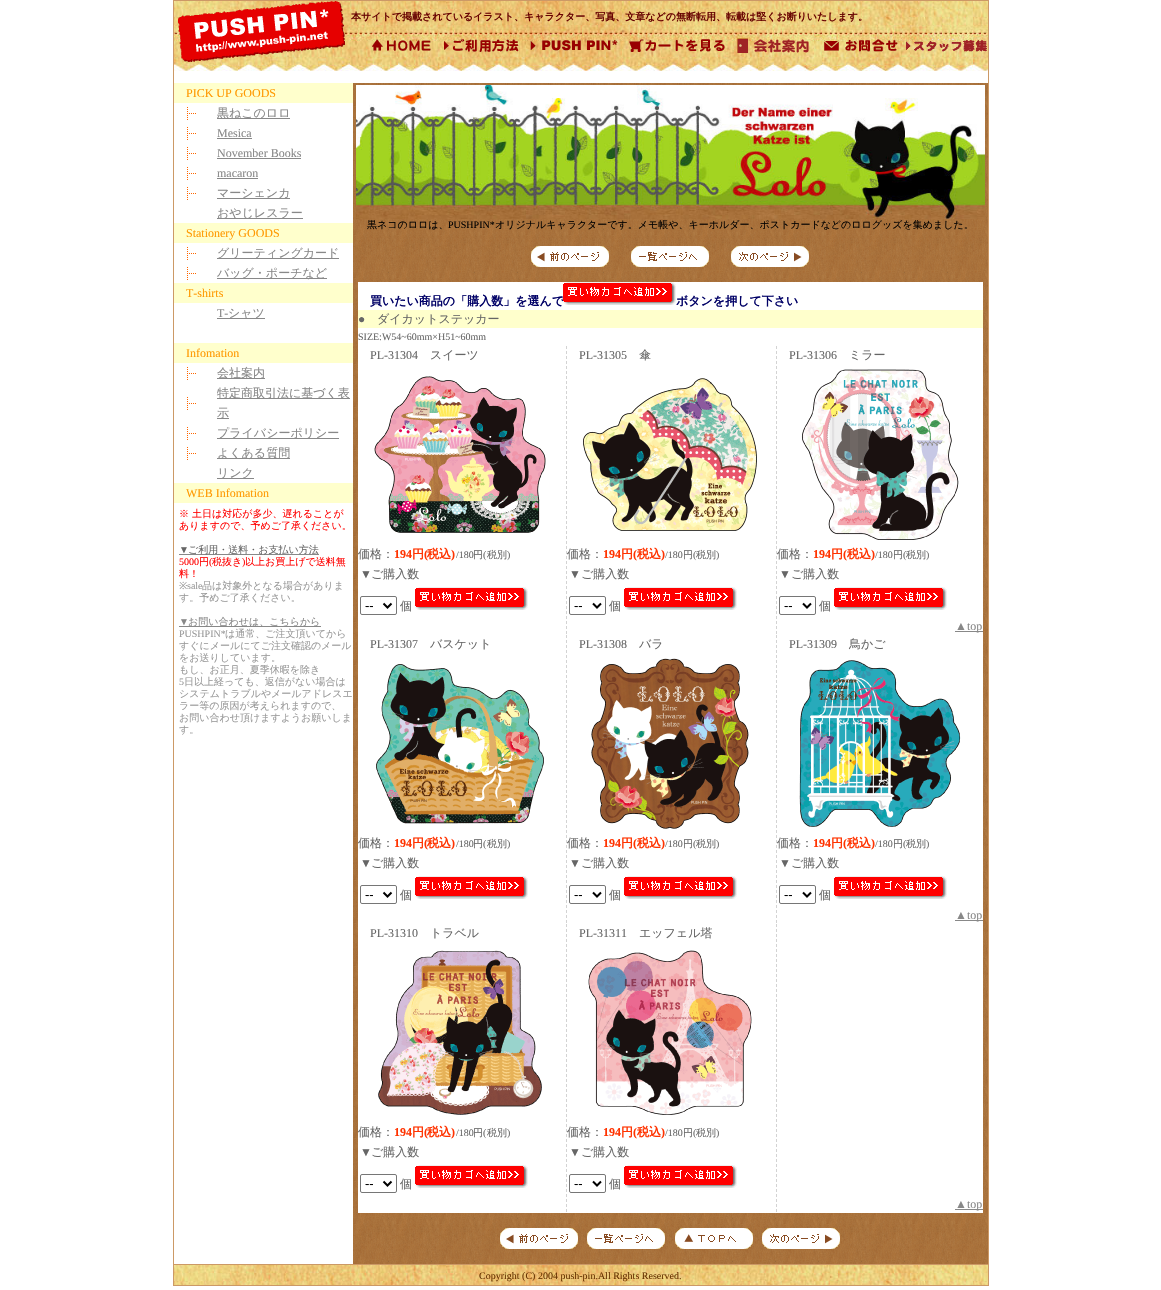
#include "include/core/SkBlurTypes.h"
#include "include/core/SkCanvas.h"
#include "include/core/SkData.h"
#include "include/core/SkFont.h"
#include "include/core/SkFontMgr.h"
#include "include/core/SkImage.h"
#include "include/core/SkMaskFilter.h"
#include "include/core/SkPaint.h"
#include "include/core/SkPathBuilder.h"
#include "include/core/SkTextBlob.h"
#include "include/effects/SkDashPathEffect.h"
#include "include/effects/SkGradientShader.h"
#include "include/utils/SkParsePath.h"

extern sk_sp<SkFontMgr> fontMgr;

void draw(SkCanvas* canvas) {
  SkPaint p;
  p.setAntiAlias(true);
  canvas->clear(SK_ColorWHITE);
  p.setColor(SkColorSetRGB(204, 153, 102));
  canvas->drawRect(SkRect::MakeLTRB(173, 0, 989, 1286), p);
  p.setColor(SK_ColorWHITE);
  canvas->drawRect(SkRect::MakeLTRB(174, 71, 988, 1264), p);
  canvas->drawImageRect(SkImages::DeferredFromEncodedData(SkData::MakeFromFileName("images/1.png")), SkRect::MakeLTRB(174, 1, 988, 71), SkSamplingOptions());
  canvas->drawImageRect(SkImages::DeferredFromEncodedData(SkData::MakeFromFileName("images/2.png")), SkRect::MakeLTRB(178, 1, 345, 62), SkSamplingOptions());
  canvas->drawImageRect(SkImages::DeferredFromEncodedData(SkData::MakeFromFileName("images/3.png")), SkRect::MakeLTRB(372, 39, 431, 51), SkSamplingOptions());
  canvas->drawImageRect(SkImages::DeferredFromEncodedData(SkData::MakeFromFileName("images/4.png")), SkRect::MakeLTRB(444, 39, 519, 52), SkSamplingOptions());
  canvas->drawImageRect(SkImages::DeferredFromEncodedData(SkData::MakeFromFileName("images/5.png")), SkRect::MakeLTRB(530, 40, 618, 51), SkSamplingOptions());
  canvas->drawImageRect(SkImages::DeferredFromEncodedData(SkData::MakeFromFileName("images/6.png")), SkRect::MakeLTRB(629, 39, 725, 52), SkSamplingOptions());
  canvas->drawImageRect(SkImages::DeferredFromEncodedData(SkData::MakeFromFileName("images/7.png")), SkRect::MakeLTRB(737, 38, 809, 53), SkSamplingOptions());
  canvas->drawImageRect(SkImages::DeferredFromEncodedData(SkData::MakeFromFileName("images/8.png")), SkRect::MakeLTRB(824, 39, 898, 52), SkSamplingOptions());
  canvas->drawImageRect(SkImages::DeferredFromEncodedData(SkData::MakeFromFileName("images/9.png")), SkRect::MakeLTRB(906, 39, 987, 52), SkSamplingOptions());
  p.setColor(SkColorSetRGB(255, 255, 204));
  canvas->drawRect(SkRect::MakeLTRB(174, 83, 353, 103), p);
  canvas->drawImageRect(SkImages::DeferredFromEncodedData(SkData::MakeFromFileName("images/10.png")), SkRect::MakeLTRB(187, 107, 196, 120), SkSamplingOptions());
  p.setColor(SkColorSetRGB(136, 136, 136));
  canvas->drawRect(SkRect::MakeLTRB(217, 118, 290, 119), p);
  canvas->drawImageRect(SkImages::DeferredFromEncodedData(SkData::MakeFromFileName("images/10.png")), SkRect::MakeLTRB(187, 127, 196, 140), SkSamplingOptions());
  canvas->drawRect(SkRect::MakeLTRB(217, 138, 252, 139), p);
  canvas->drawImageRect(SkImages::DeferredFromEncodedData(SkData::MakeFromFileName("images/10.png")), SkRect::MakeLTRB(187, 147, 196, 160), SkSamplingOptions());
  canvas->drawRect(SkRect::MakeLTRB(217, 158, 301, 159), p);
  canvas->drawImageRect(SkImages::DeferredFromEncodedData(SkData::MakeFromFileName("images/10.png")), SkRect::MakeLTRB(187, 167, 196, 180), SkSamplingOptions());
  canvas->drawRect(SkRect::MakeLTRB(217, 178, 258, 179), p);
  canvas->drawImageRect(SkImages::DeferredFromEncodedData(SkData::MakeFromFileName("images/10.png")), SkRect::MakeLTRB(187, 187, 196, 200), SkSamplingOptions());
  canvas->drawRect(SkRect::MakeLTRB(217, 198, 290, 199), p);
  canvas->drawRect(SkRect::MakeLTRB(217, 218, 303, 219), p);
  p.setColor(SkColorSetRGB(255, 255, 204));
  canvas->drawRect(SkRect::MakeLTRB(174, 223, 353, 243), p);
  canvas->drawImageRect(SkImages::DeferredFromEncodedData(SkData::MakeFromFileName("images/10.png")), SkRect::MakeLTRB(187, 247, 196, 260), SkSamplingOptions());
  p.setColor(SkColorSetRGB(136, 136, 136));
  canvas->drawRect(SkRect::MakeLTRB(217, 258, 339, 259), p);
  canvas->drawImageRect(SkImages::DeferredFromEncodedData(SkData::MakeFromFileName("images/10.png")), SkRect::MakeLTRB(187, 267, 196, 280), SkSamplingOptions());
  canvas->drawRect(SkRect::MakeLTRB(217, 278, 327, 279), p);
  p.setColor(SkColorSetRGB(255, 255, 204));
  canvas->drawRect(SkRect::MakeLTRB(174, 283, 353, 303), p);
  p.setColor(SkColorSetRGB(136, 136, 136));
  canvas->drawRect(SkRect::MakeLTRB(217, 318, 265, 319), p);
  p.setColor(SkColorSetRGB(255, 255, 204));
  canvas->drawRect(SkRect::MakeLTRB(174, 343, 353, 363), p);
  canvas->drawImageRect(SkImages::DeferredFromEncodedData(SkData::MakeFromFileName("images/10.png")), SkRect::MakeLTRB(187, 367, 196, 380), SkSamplingOptions());
  p.setColor(SkColorSetRGB(136, 136, 136));
  canvas->drawRect(SkRect::MakeLTRB(217, 378, 265, 379), p);
  canvas->drawImageRect(SkImages::DeferredFromEncodedData(SkData::MakeFromFileName("images/10.png")), SkRect::MakeLTRB(187, 397, 196, 410), SkSamplingOptions());
  canvas->drawRect(SkRect::MakeLTRB(217, 398, 350, 399), p);
  canvas->drawRect(SkRect::MakeLTRB(217, 418, 229, 419), p);
  canvas->drawImageRect(SkImages::DeferredFromEncodedData(SkData::MakeFromFileName("images/10.png")), SkRect::MakeLTRB(187, 427, 196, 440), SkSamplingOptions());
  canvas->drawRect(SkRect::MakeLTRB(217, 438, 339, 439), p);
  canvas->drawImageRect(SkImages::DeferredFromEncodedData(SkData::MakeFromFileName("images/10.png")), SkRect::MakeLTRB(187, 447, 196, 460), SkSamplingOptions());
  canvas->drawRect(SkRect::MakeLTRB(217, 458, 290, 459), p);
  canvas->drawRect(SkRect::MakeLTRB(217, 478, 254, 479), p);
  p.setColor(SkColorSetRGB(255, 255, 204));
  canvas->drawRect(SkRect::MakeLTRB(174, 483, 353, 503), p);
  p.setColor(SkColorSetRGB(136, 136, 136));
  canvas->drawRect(SkRect::MakeLTRB(179, 554, 319, 555), p);
  canvas->drawRect(SkRect::MakeLTRB(179, 626, 321, 627), p);
  canvas->drawImageRect(SkImages::DeferredFromEncodedData(SkData::MakeFromFileName("images/11.png")), SkRect::MakeLTRB(353, 83, 988, 1264), SkSamplingOptions());
  canvas->drawImageRect(SkImages::DeferredFromEncodedData(SkData::MakeFromFileName("images/12.png")), SkRect::MakeLTRB(356, 85, 985, 219), SkSamplingOptions());
  canvas->drawImageRect(SkImages::DeferredFromEncodedData(SkData::MakeFromFileName("images/13.png")), SkRect::MakeLTRB(531, 246, 609, 267), SkSamplingOptions());
  canvas->drawImageRect(SkImages::DeferredFromEncodedData(SkData::MakeFromFileName("images/14.png")), SkRect::MakeLTRB(631, 246, 709, 267), SkSamplingOptions());
  canvas->drawImageRect(SkImages::DeferredFromEncodedData(SkData::MakeFromFileName("images/15.png")), SkRect::MakeLTRB(731, 246, 809, 267), SkSamplingOptions());
  p.setColor(SK_ColorWHITE);
  canvas->drawRect(SkRect::MakeLTRB(358, 282, 983, 1213), p);
  p.setColor(SkColorSetRGB(255, 255, 204));
  canvas->drawRect(SkRect::MakeLTRB(358, 310, 983, 328), p);
  canvas->drawImageRect(SkImages::DeferredFromEncodedData(SkData::MakeFromFileName("images/17.png")), SkRect::MakeLTRB(566, 346, 567, 634), SkSamplingOptions());
  canvas->drawImageRect(SkImages::DeferredFromEncodedData(SkData::MakeFromFileName("images/17.png")), SkRect::MakeLTRB(776, 346, 777, 634), SkSamplingOptions());
  canvas->drawImageRect(SkImages::DeferredFromEncodedData(SkData::MakeFromFileName("images/18.png")), SkRect::MakeLTRB(374, 376, 546, 533), SkSamplingOptions());
  canvas->drawImageRect(SkImages::DeferredFromEncodedData(SkData::MakeFromFileName("images/19.png")), SkRect::MakeLTRB(583, 378, 757, 531), SkSamplingOptions());
  canvas->drawImageRect(SkImages::DeferredFromEncodedData(SkData::MakeFromFileName("images/20.png")), SkRect::MakeLTRB(801, 369, 959, 540), SkSamplingOptions());
  p.setStyle(SkPaint::kStroke_Style);
  p.setStrokeWidth(1);
  p.setColor(SkColorSetRGB(118, 118, 118));
  canvas->drawRoundRect(SkRect::MakeLTRB(360.5f, 596.5f, 396.5f, 614.5f), 1.5f, 1.5f, p);
  p.setStrokeWidth(2);
  p.setColor(SK_ColorBLACK);
  canvas->drawPath(SkPathBuilder().moveTo(383.5f, 603.5f).lineTo(387.5f, 607.5f).lineTo(391.5f, 603.5f).detach(), p);
  canvas->drawImageRect(SkImages::DeferredFromEncodedData(SkData::MakeFromFileName("images/16.png")), SkRect::MakeLTRB(415, 587, 528, 610), SkSamplingOptions());
  p.setStrokeWidth(1);
  p.setColor(SkColorSetRGB(118, 118, 118));
  canvas->drawRoundRect(SkRect::MakeLTRB(569.5f, 596.5f, 605.5f, 614.5f), 1.5f, 1.5f, p);
  p.setStrokeWidth(2);
  p.setColor(SK_ColorBLACK);
  canvas->drawPath(SkPathBuilder().moveTo(593, 603.5f).lineTo(597, 607.5f).lineTo(601, 603.5f).detach(), p);
  canvas->drawImageRect(SkImages::DeferredFromEncodedData(SkData::MakeFromFileName("images/16.png")), SkRect::MakeLTRB(624, 587, 737, 610), SkSamplingOptions());
  p.setStrokeWidth(1);
  p.setColor(SkColorSetRGB(118, 118, 118));
  canvas->drawRoundRect(SkRect::MakeLTRB(779.5f, 596.5f, 815.5f, 614.5f), 1.5f, 1.5f, p);
  p.setStrokeWidth(2);
  p.setColor(SK_ColorBLACK);
  canvas->drawPath(SkPathBuilder().moveTo(803, 603.5f).lineTo(807, 607.5f).lineTo(811, 603.5f).detach(), p);
  canvas->drawImageRect(SkImages::DeferredFromEncodedData(SkData::MakeFromFileName("images/16.png")), SkRect::MakeLTRB(834, 587, 947, 610), SkSamplingOptions());
  p.setStyle(SkPaint::kFill_Style);
  p.setColor(SkColorSetRGB(136, 136, 136));
  canvas->drawRect(SkRect::MakeLTRB(955, 631, 983, 632), p);
  canvas->drawImageRect(SkImages::DeferredFromEncodedData(SkData::MakeFromFileName("images/17.png")), SkRect::MakeLTRB(566, 635, 567, 923), SkSamplingOptions());
  canvas->drawImageRect(SkImages::DeferredFromEncodedData(SkData::MakeFromFileName("images/17.png")), SkRect::MakeLTRB(776, 635, 777, 923), SkSamplingOptions());
  canvas->drawImageRect(SkImages::DeferredFromEncodedData(SkData::MakeFromFileName("images/21.png")), SkRect::MakeLTRB(376, 664, 544, 824), SkSamplingOptions());
  canvas->drawImageRect(SkImages::DeferredFromEncodedData(SkData::MakeFromFileName("images/22.png")), SkRect::MakeLTRB(591, 658, 749, 829), SkSamplingOptions());
  canvas->drawImageRect(SkImages::DeferredFromEncodedData(SkData::MakeFromFileName("images/23.png")), SkRect::MakeLTRB(799, 660, 961, 827), SkSamplingOptions());
  p.setStyle(SkPaint::kStroke_Style);
  p.setStrokeWidth(1);
  p.setColor(SkColorSetRGB(118, 118, 118));
  canvas->drawRoundRect(SkRect::MakeLTRB(360.5f, 885.5f, 396.5f, 903.5f), 1.5f, 1.5f, p);
  p.setStrokeWidth(2);
  p.setColor(SK_ColorBLACK);
  canvas->drawPath(SkPathBuilder().moveTo(383.5f, 892.5f).lineTo(387.5f, 896.5f).lineTo(391.5f, 892.5f).detach(), p);
  canvas->drawImageRect(SkImages::DeferredFromEncodedData(SkData::MakeFromFileName("images/16.png")), SkRect::MakeLTRB(415, 876, 528, 899), SkSamplingOptions());
  p.setStrokeWidth(1);
  p.setColor(SkColorSetRGB(118, 118, 118));
  canvas->drawRoundRect(SkRect::MakeLTRB(569.5f, 885.5f, 605.5f, 903.5f), 1.5f, 1.5f, p);
  p.setStrokeWidth(2);
  p.setColor(SK_ColorBLACK);
  canvas->drawPath(SkPathBuilder().moveTo(593, 892.5f).lineTo(597, 896.5f).lineTo(601, 892.5f).detach(), p);
  canvas->drawImageRect(SkImages::DeferredFromEncodedData(SkData::MakeFromFileName("images/16.png")), SkRect::MakeLTRB(624, 876, 737, 899), SkSamplingOptions());
  p.setStrokeWidth(1);
  p.setColor(SkColorSetRGB(118, 118, 118));
  canvas->drawRoundRect(SkRect::MakeLTRB(779.5f, 885.5f, 815.5f, 903.5f), 1.5f, 1.5f, p);
  p.setStrokeWidth(2);
  p.setColor(SK_ColorBLACK);
  canvas->drawPath(SkPathBuilder().moveTo(803, 892.5f).lineTo(807, 896.5f).lineTo(811, 892.5f).detach(), p);
  canvas->drawImageRect(SkImages::DeferredFromEncodedData(SkData::MakeFromFileName("images/16.png")), SkRect::MakeLTRB(834, 876, 947, 899), SkSamplingOptions());
  p.setStyle(SkPaint::kFill_Style);
  p.setColor(SkColorSetRGB(136, 136, 136));
  canvas->drawRect(SkRect::MakeLTRB(955, 920, 983, 921), p);
  canvas->drawImageRect(SkImages::DeferredFromEncodedData(SkData::MakeFromFileName("images/17.png")), SkRect::MakeLTRB(566, 924, 567, 1212), SkSamplingOptions());
  canvas->drawImageRect(SkImages::DeferredFromEncodedData(SkData::MakeFromFileName("images/17.png")), SkRect::MakeLTRB(776, 924, 777, 1212), SkSamplingOptions());
  canvas->drawImageRect(SkImages::DeferredFromEncodedData(SkData::MakeFromFileName("images/24.png")), SkRect::MakeLTRB(378, 950, 542, 1115), SkSamplingOptions());
  canvas->drawImageRect(SkImages::DeferredFromEncodedData(SkData::MakeFromFileName("images/25.png")), SkRect::MakeLTRB(588, 950, 752, 1115), SkSamplingOptions());
  p.setStyle(SkPaint::kStroke_Style);
  p.setStrokeWidth(1);
  p.setColor(SkColorSetRGB(118, 118, 118));
  canvas->drawRoundRect(SkRect::MakeLTRB(360.5f, 1174.5f, 396.5f, 1192.5f), 1.5f, 1.5f, p);
  p.setStrokeWidth(2);
  p.setColor(SK_ColorBLACK);
  canvas->drawPath(SkPathBuilder().moveTo(383.5f, 1181.5f).lineTo(387.5f, 1185.5f).lineTo(391.5f, 1181.5f).detach(), p);
  canvas->drawImageRect(SkImages::DeferredFromEncodedData(SkData::MakeFromFileName("images/16.png")), SkRect::MakeLTRB(415, 1165, 528, 1188), SkSamplingOptions());
  p.setStrokeWidth(1);
  p.setColor(SkColorSetRGB(118, 118, 118));
  canvas->drawRoundRect(SkRect::MakeLTRB(569.5f, 1174.5f, 605.5f, 1192.5f), 1.5f, 1.5f, p);
  p.setStrokeWidth(2);
  p.setColor(SK_ColorBLACK);
  canvas->drawPath(SkPathBuilder().moveTo(593, 1181.5f).lineTo(597, 1185.5f).lineTo(601, 1181.5f).detach(), p);
  canvas->drawImageRect(SkImages::DeferredFromEncodedData(SkData::MakeFromFileName("images/16.png")), SkRect::MakeLTRB(624, 1165, 737, 1188), SkSamplingOptions());
  p.setStyle(SkPaint::kFill_Style);
  p.setColor(SkColorSetRGB(136, 136, 136));
  canvas->drawRect(SkRect::MakeLTRB(955, 1209, 983, 1210), p);
  canvas->drawImageRect(SkImages::DeferredFromEncodedData(SkData::MakeFromFileName("images/26.png")), SkRect::MakeLTRB(500, 1228, 578, 1249), SkSamplingOptions());
  canvas->drawImageRect(SkImages::DeferredFromEncodedData(SkData::MakeFromFileName("images/27.png")), SkRect::MakeLTRB(587, 1228, 665, 1249), SkSamplingOptions());
  canvas->drawImageRect(SkImages::DeferredFromEncodedData(SkData::MakeFromFileName("images/28.png")), SkRect::MakeLTRB(675, 1228, 753, 1249), SkSamplingOptions());
  canvas->drawImageRect(SkImages::DeferredFromEncodedData(SkData::MakeFromFileName("images/29.png")), SkRect::MakeLTRB(762, 1228, 840, 1249), SkSamplingOptions());
  canvas->drawImageRect(SkImages::DeferredFromEncodedData(SkData::MakeFromFileName("images/30.png")), SkRect::MakeLTRB(174, 1265, 988, 1285), SkSamplingOptions());
  SkFont font1(fontMgr->matchFamilyStyle("WenQuanYi Zen Hei", SkFontStyle::Bold()), 10);
  font1.setSubpixel(true);
  p.setColor(SkColorSetRGB(102, 0, 0));
  canvas->drawString("本サイトで掲載されているイラスト、キャラクター、写真、文章などの無断転用、転載は堅くお断りいたします。", 351, 20, font1, p);
  SkFont font2(fontMgr->matchFamilyStyle("Liberation Serif", SkFontStyle::Normal()), 12);
  font2.setSubpixel(true);
  p.setColor(SkColorSetRGB(255, 153, 0));
  canvas->drawString("PICK UP GOODS", 186, 97, font2, p);
  SkFont font3(fontMgr->matchFamilyStyle("WenQuanYi Zen Hei", SkFontStyle(500, SkFontStyle::kNormal_Width, SkFontStyle::kUpright_Slant)), 12);
  font3.setSubpixel(true);
  p.setColor(SkColorSetRGB(136, 136, 136));
  canvas->drawString("黒ねこのロロ", 217, 117, font3, p);
  canvas->drawString("Mesica", 217, 137, font2, p);
  canvas->drawString("November Books", 217, 157, font2, p);
  canvas->drawString("macaron", 217, 177, font2, p);
  canvas->drawString("マーシェンカ", 217, 197, font3, p);
  canvas->drawString("おやじレスラー", 217, 217, font3, p);
  p.setColor(SkColorSetRGB(255, 153, 0));
  canvas->drawString("Stationery GOODS", 186, 237, font2, p);
  p.setColor(SkColorSetRGB(136, 136, 136));
  canvas->drawString("グリーティングカード", 217, 257, font3, p);
  canvas->drawString("バッグ・ポーチなど", 217, 277, font3, p);
  p.setColor(SkColorSetRGB(255, 153, 0));
  canvas->drawString("T-shirts", 186, 297, font2, p);
  p.setColor(SkColorSetRGB(136, 136, 136));
  canvas->drawString("T-", 217, 317, font2, p);
  canvas->drawString("シャツ", 228, 317, font3, p);
  p.setColor(SkColorSetRGB(255, 153, 0));
  canvas->drawString("Infomation", 186, 357, font2, p);
  p.setColor(SkColorSetRGB(136, 136, 136));
  canvas->drawString("会社案内", 217, 377, font3, p);
  canvas->drawString("特定商取引法に基づく表", 217, 397, font3, p);
  canvas->drawString("示", 217, 417, font3, p);
  canvas->drawString("プライバシーポリシー", 217, 437, font3, p);
  canvas->drawString("よくある質問", 217, 457, font3, p);
  canvas->drawString("リンク", 217, 477, font3, p);
  p.setColor(SkColorSetRGB(255, 153, 0));
  canvas->drawString("WEB Infomation", 186, 497, font2, p);
  SkFont font4(fontMgr->matchFamilyStyle("WenQuanYi Zen Hei", SkFontStyle(500, SkFontStyle::kNormal_Width, SkFontStyle::kUpright_Slant)), 10);
  font4.setSubpixel(true);
  p.setColor(SkColorSetRGB(255, 0, 0));
  canvas->drawString("※ 土日は対応が多少、遅れることが", 179, 517, font4, p);
  canvas->drawString("ありますので、予めご了承ください。", 179, 529, font4, p);
  SkFont font5(fontMgr->matchFamilyStyle("Liberation Serif", SkFontStyle::Normal()), 10);
  font5.setSubpixel(true);
  p.setColor(SkColorSetRGB(102, 102, 102));
  canvas->drawString("▼", 179, 553, font5, p);
  canvas->drawString("ご利用・送料・お支払い方法", 188, 553, font4, p);
  p.setColor(SkColorSetRGB(255, 0, 0));
  canvas->drawString("5000", 179, 565, font5, p);
  canvas->drawString("円", 199, 565, font4, p);
  canvas->drawString("(", 209, 565, font5, p);
  canvas->drawString("税抜き", 212, 565, font4, p);
  canvas->drawString(")", 242, 565, font5, p);
  canvas->drawString("以上お買上げで送料無", 245, 565, font4, p);
  canvas->drawString("料！", 179, 577, font4, p);
  SkFont font6(fontMgr->matchFamilyStyle("Noto Sans", SkFontStyle::Normal()), 10);
  font6.setSubpixel(true);
  p.setColor(SkColorSetRGB(153, 153, 153));
  canvas->drawString("※", 179, 589, font6, p);
  canvas->drawString("sale", 187, 589, font5, p);
  canvas->drawString("品は対象外となる場合がありま", 202, 589, font4, p);
  canvas->drawString("す。予めご了承ください。", 179, 601, font4, p);
  p.setColor(SkColorSetRGB(136, 136, 136));
  canvas->drawString("▼", 179, 625, font5, p);
  canvas->drawString("お問い合わせは、こちらから", 188, 625, font4, p);
  p.setColor(SkColorSetRGB(153, 153, 153));
  canvas->drawString("PUSHPIN*", 179, 637, font5, p);
  canvas->drawString("は通常、ご注文頂いてから", 225, 637, font4, p);
  canvas->drawString("すぐにメールにてご注文確認のメール", 179, 649, font4, p);
  canvas->drawString("をお送りしています。", 179, 661, font4, p);
  canvas->drawString("もし、お正月、夏季休暇を除き", 179, 673, font4, p);
  canvas->drawString("5", 179, 685, font5, p);
  canvas->drawString("日以上経っても、返信がない場合は", 184, 685, font4, p);
  canvas->drawString("システムトラブルやメールアドレスエ", 179, 697, font4, p);
  canvas->drawString("ラー等の原因が考えられますので、", 179, 709, font4, p);
  canvas->drawString("お問い合わせ頂けますようお願いしま", 179, 721, font4, p);
  canvas->drawString("す。", 179, 733, font4, p);
  p.setColor(SK_ColorBLACK);
  canvas->drawString("黒ネコのロロは、", 367, 228, font4, p);
  canvas->drawString("PUSHPIN*", 448, 228, font5, p);
  canvas->drawString("オリジナルキャラクターです。メモ帳や、キーホルダー、ポストカードなどのロログッズを集めました。", 495, 228, font4, p);
  SkFont font7(fontMgr->matchFamilyStyle("WenQuanYi Zen Hei", SkFontStyle::Bold()), 12);
  font7.setSubpixel(true);
  p.setColor(SkColorSetRGB(0, 0, 102));
  canvas->drawString("買いたい商品の「購入数」を選んで", 370, 305, font7, p);
  canvas->drawImageRect(SkImages::DeferredFromEncodedData(SkData::MakeFromFileName("images/16.png")), SkRect::MakeLTRB(563, 282, 676, 305), SkSamplingOptions());
  canvas->drawString("ボタンを押して下さい", 676, 305, font7, p);
  p.setColor(SkColorSetRGB(102, 102, 102));
  canvas->drawString("●", 358, 323, font2, p);
  canvas->drawString("ダイカットステッカー", 377, 323, font3, p);
  canvas->drawString("SIZE:W54~60mm×H51~60mm", 358, 340, font5, p);
  canvas->drawString("PL-31304", 370, 359, font2, p);
  canvas->drawString("スイーツ", 430, 359, font3, p);
  canvas->drawString("PL-31305", 579, 359, font2, p);
  canvas->drawString("傘", 639, 359, font3, p);
  canvas->drawString("PL-31306", 789, 359, font2, p);
  canvas->drawString("ミラー", 849, 359, font3, p);
  canvas->drawString("価格：", 358, 558, font3, p);
  SkFont font8(fontMgr->matchFamilyStyle("Liberation Serif", SkFontStyle::Bold()), 12);
  font8.setSubpixel(true);
  p.setColor(SkColorSetRGB(255, 51, 0));
  canvas->drawString("194", 394, 558, font8, p);
  canvas->drawString("円", 412, 558, font7, p);
  canvas->drawString("(", 424, 558, font8, p);
  canvas->drawString("税込", 427, 558, font7, p);
  canvas->drawString(")", 451, 558, font8, p);
  p.setColor(SkColorSetRGB(102, 102, 102));
  canvas->drawString("/180", 456, 558, font5, p);
  canvas->drawString("円", 473, 558, font4, p);
  canvas->drawString("(", 483, 558, font5, p);
  canvas->drawString("税別", 487, 558, font4, p);
  canvas->drawString(")", 507, 558, font5, p);
  canvas->drawString("価格：", 567, 558, font3, p);
  p.setColor(SkColorSetRGB(255, 51, 0));
  canvas->drawString("194", 603, 558, font8, p);
  canvas->drawString("円", 621, 558, font7, p);
  canvas->drawString("(", 633, 558, font8, p);
  canvas->drawString("税込", 637, 558, font7, p);
  canvas->drawString(")", 661, 558, font8, p);
  p.setColor(SkColorSetRGB(102, 102, 102));
  canvas->drawString("/180", 665, 558, font5, p);
  canvas->drawString("円", 683, 558, font4, p);
  canvas->drawString("(", 693, 558, font5, p);
  canvas->drawString("税別", 696, 558, font4, p);
  canvas->drawString(")", 716, 558, font5, p);
  canvas->drawString("価格：", 777, 558, font3, p);
  p.setColor(SkColorSetRGB(255, 51, 0));
  canvas->drawString("194", 813, 558, font8, p);
  canvas->drawString("円", 831, 558, font7, p);
  canvas->drawString("(", 843, 558, font8, p);
  canvas->drawString("税込", 847, 558, font7, p);
  canvas->drawString(")", 871, 558, font8, p);
  p.setColor(SkColorSetRGB(102, 102, 102));
  canvas->drawString("/180", 875, 558, font5, p);
  canvas->drawString("円", 893, 558, font4, p);
  canvas->drawString("(", 903, 558, font5, p);
  canvas->drawString("税別", 906, 558, font4, p);
  canvas->drawString(")", 926, 558, font5, p);
  canvas->drawString("▼", 360, 578, font2, p);
  canvas->drawString("ご購入数", 371, 578, font3, p);
  SkFont font9(fontMgr->matchFamilyStyle("Liberation Sans", SkFontStyle::Normal()), 13);
  font9.setSubpixel(true);
  p.setColor(SK_ColorBLACK);
  canvas->drawString("--", 365, 610, font9, p);
  p.setColor(SkColorSetRGB(102, 102, 102));
  canvas->drawString("個", 400, 610, font3, p);
  canvas->drawString("▼", 569, 578, font2, p);
  canvas->drawString("ご購入数", 581, 578, font3, p);
  p.setColor(SK_ColorBLACK);
  canvas->drawString("--", 574, 610, font9, p);
  p.setColor(SkColorSetRGB(102, 102, 102));
  canvas->drawString("個", 609, 610, font3, p);
  canvas->drawString("▼", 779, 578, font2, p);
  canvas->drawString("ご購入数", 791, 578, font3, p);
  p.setColor(SK_ColorBLACK);
  canvas->drawString("--", 784, 610, font9, p);
  p.setColor(SkColorSetRGB(102, 102, 102));
  canvas->drawString("個", 819, 610, font3, p);
  p.setColor(SkColorSetRGB(136, 136, 136));
  canvas->drawString("▲top", 955, 630, font2, p);
  p.setColor(SkColorSetRGB(102, 102, 102));
  canvas->drawString("PL-31307", 370, 648, font2, p);
  canvas->drawString("バスケット", 430, 648, font3, p);
  canvas->drawString("PL-31308", 579, 648, font2, p);
  canvas->drawString("バラ", 639, 648, font3, p);
  canvas->drawString("PL-31309", 789, 648, font2, p);
  canvas->drawString("鳥かご", 849, 648, font3, p);
  canvas->drawString("価格：", 358, 847, font3, p);
  p.setColor(SkColorSetRGB(255, 51, 0));
  canvas->drawString("194", 394, 847, font8, p);
  canvas->drawString("円", 412, 847, font7, p);
  canvas->drawString("(", 424, 847, font8, p);
  canvas->drawString("税込", 427, 847, font7, p);
  canvas->drawString(")", 451, 847, font8, p);
  p.setColor(SkColorSetRGB(102, 102, 102));
  canvas->drawString("/180", 456, 847, font5, p);
  canvas->drawString("円", 473, 847, font4, p);
  canvas->drawString("(", 483, 847, font5, p);
  canvas->drawString("税別", 487, 847, font4, p);
  canvas->drawString(")", 507, 847, font5, p);
  canvas->drawString("価格：", 567, 847, font3, p);
  p.setColor(SkColorSetRGB(255, 51, 0));
  canvas->drawString("194", 603, 847, font8, p);
  canvas->drawString("円", 621, 847, font7, p);
  canvas->drawString("(", 633, 847, font8, p);
  canvas->drawString("税込", 637, 847, font7, p);
  canvas->drawString(")", 661, 847, font8, p);
  p.setColor(SkColorSetRGB(102, 102, 102));
  canvas->drawString("/180", 665, 847, font5, p);
  canvas->drawString("円", 683, 847, font4, p);
  canvas->drawString("(", 693, 847, font5, p);
  canvas->drawString("税別", 696, 847, font4, p);
  canvas->drawString(")", 716, 847, font5, p);
  canvas->drawString("価格：", 777, 847, font3, p);
  p.setColor(SkColorSetRGB(255, 51, 0));
  canvas->drawString("194", 813, 847, font8, p);
  canvas->drawString("円", 831, 847, font7, p);
  canvas->drawString("(", 843, 847, font8, p);
  canvas->drawString("税込", 847, 847, font7, p);
  canvas->drawString(")", 871, 847, font8, p);
  p.setColor(SkColorSetRGB(102, 102, 102));
  canvas->drawString("/180", 875, 847, font5, p);
  canvas->drawString("円", 893, 847, font4, p);
  canvas->drawString("(", 903, 847, font5, p);
  canvas->drawString("税別", 906, 847, font4, p);
  canvas->drawString(")", 926, 847, font5, p);
  canvas->drawString("▼", 360, 867, font2, p);
  canvas->drawString("ご購入数", 371, 867, font3, p);
  p.setColor(SK_ColorBLACK);
  canvas->drawString("--", 365, 899, font9, p);
  p.setColor(SkColorSetRGB(102, 102, 102));
  canvas->drawString("個", 400, 899, font3, p);
  canvas->drawString("▼", 569, 867, font2, p);
  canvas->drawString("ご購入数", 581, 867, font3, p);
  p.setColor(SK_ColorBLACK);
  canvas->drawString("--", 574, 899, font9, p);
  p.setColor(SkColorSetRGB(102, 102, 102));
  canvas->drawString("個", 609, 899, font3, p);
  canvas->drawString("▼", 779, 867, font2, p);
  canvas->drawString("ご購入数", 791, 867, font3, p);
  p.setColor(SK_ColorBLACK);
  canvas->drawString("--", 784, 899, font9, p);
  p.setColor(SkColorSetRGB(102, 102, 102));
  canvas->drawString("個", 819, 899, font3, p);
  p.setColor(SkColorSetRGB(136, 136, 136));
  canvas->drawString("▲top", 955, 919, font2, p);
  p.setColor(SkColorSetRGB(102, 102, 102));
  canvas->drawString("PL-31310", 370, 937, font2, p);
  canvas->drawString("トラベル", 430, 937, font3, p);
  canvas->drawString("PL-31311", 579, 937, font2, p);
  canvas->drawString("エッフェル塔", 639, 937, font3, p);
  canvas->drawString("価格：", 358, 1136, font3, p);
  p.setColor(SkColorSetRGB(255, 51, 0));
  canvas->drawString("194", 394, 1136, font8, p);
  canvas->drawString("円", 412, 1136, font7, p);
  canvas->drawString("(", 424, 1136, font8, p);
  canvas->drawString("税込", 427, 1136, font7, p);
  canvas->drawString(")", 451, 1136, font8, p);
  p.setColor(SkColorSetRGB(102, 102, 102));
  canvas->drawString("/180", 456, 1136, font5, p);
  canvas->drawString("円", 473, 1136, font4, p);
  canvas->drawString("(", 483, 1136, font5, p);
  canvas->drawString("税別", 487, 1136, font4, p);
  canvas->drawString(")", 507, 1136, font5, p);
  canvas->drawString("価格：", 567, 1136, font3, p);
  p.setColor(SkColorSetRGB(255, 51, 0));
  canvas->drawString("194", 603, 1136, font8, p);
  canvas->drawString("円", 621, 1136, font7, p);
  canvas->drawString("(", 633, 1136, font8, p);
  canvas->drawString("税込", 637, 1136, font7, p);
  canvas->drawString(")", 661, 1136, font8, p);
  p.setColor(SkColorSetRGB(102, 102, 102));
  canvas->drawString("/180", 665, 1136, font5, p);
  canvas->drawString("円", 683, 1136, font4, p);
  canvas->drawString("(", 693, 1136, font5, p);
  canvas->drawString("税別", 696, 1136, font4, p);
  canvas->drawString(")", 716, 1136, font5, p);
  canvas->drawString("▼", 360, 1156, font2, p);
  canvas->drawString("ご購入数", 371, 1156, font3, p);
  p.setColor(SK_ColorBLACK);
  canvas->drawString("--", 365, 1188, font9, p);
  p.setColor(SkColorSetRGB(102, 102, 102));
  canvas->drawString("個", 400, 1188, font3, p);
  canvas->drawString("▼", 569, 1156, font2, p);
  canvas->drawString("ご購入数", 581, 1156, font3, p);
  p.setColor(SK_ColorBLACK);
  canvas->drawString("--", 574, 1188, font9, p);
  p.setColor(SkColorSetRGB(102, 102, 102));
  canvas->drawString("個", 609, 1188, font3, p);
  p.setColor(SkColorSetRGB(136, 136, 136));
  canvas->drawString("▲top", 955, 1208, font2, p);
  p.setColor(SkColorSetRGB(102, 51, 0));
  canvas->drawString("Copyright (C) 2004 push-pin.All Rights Reserved.", 479, 1279, font5, p);
}
